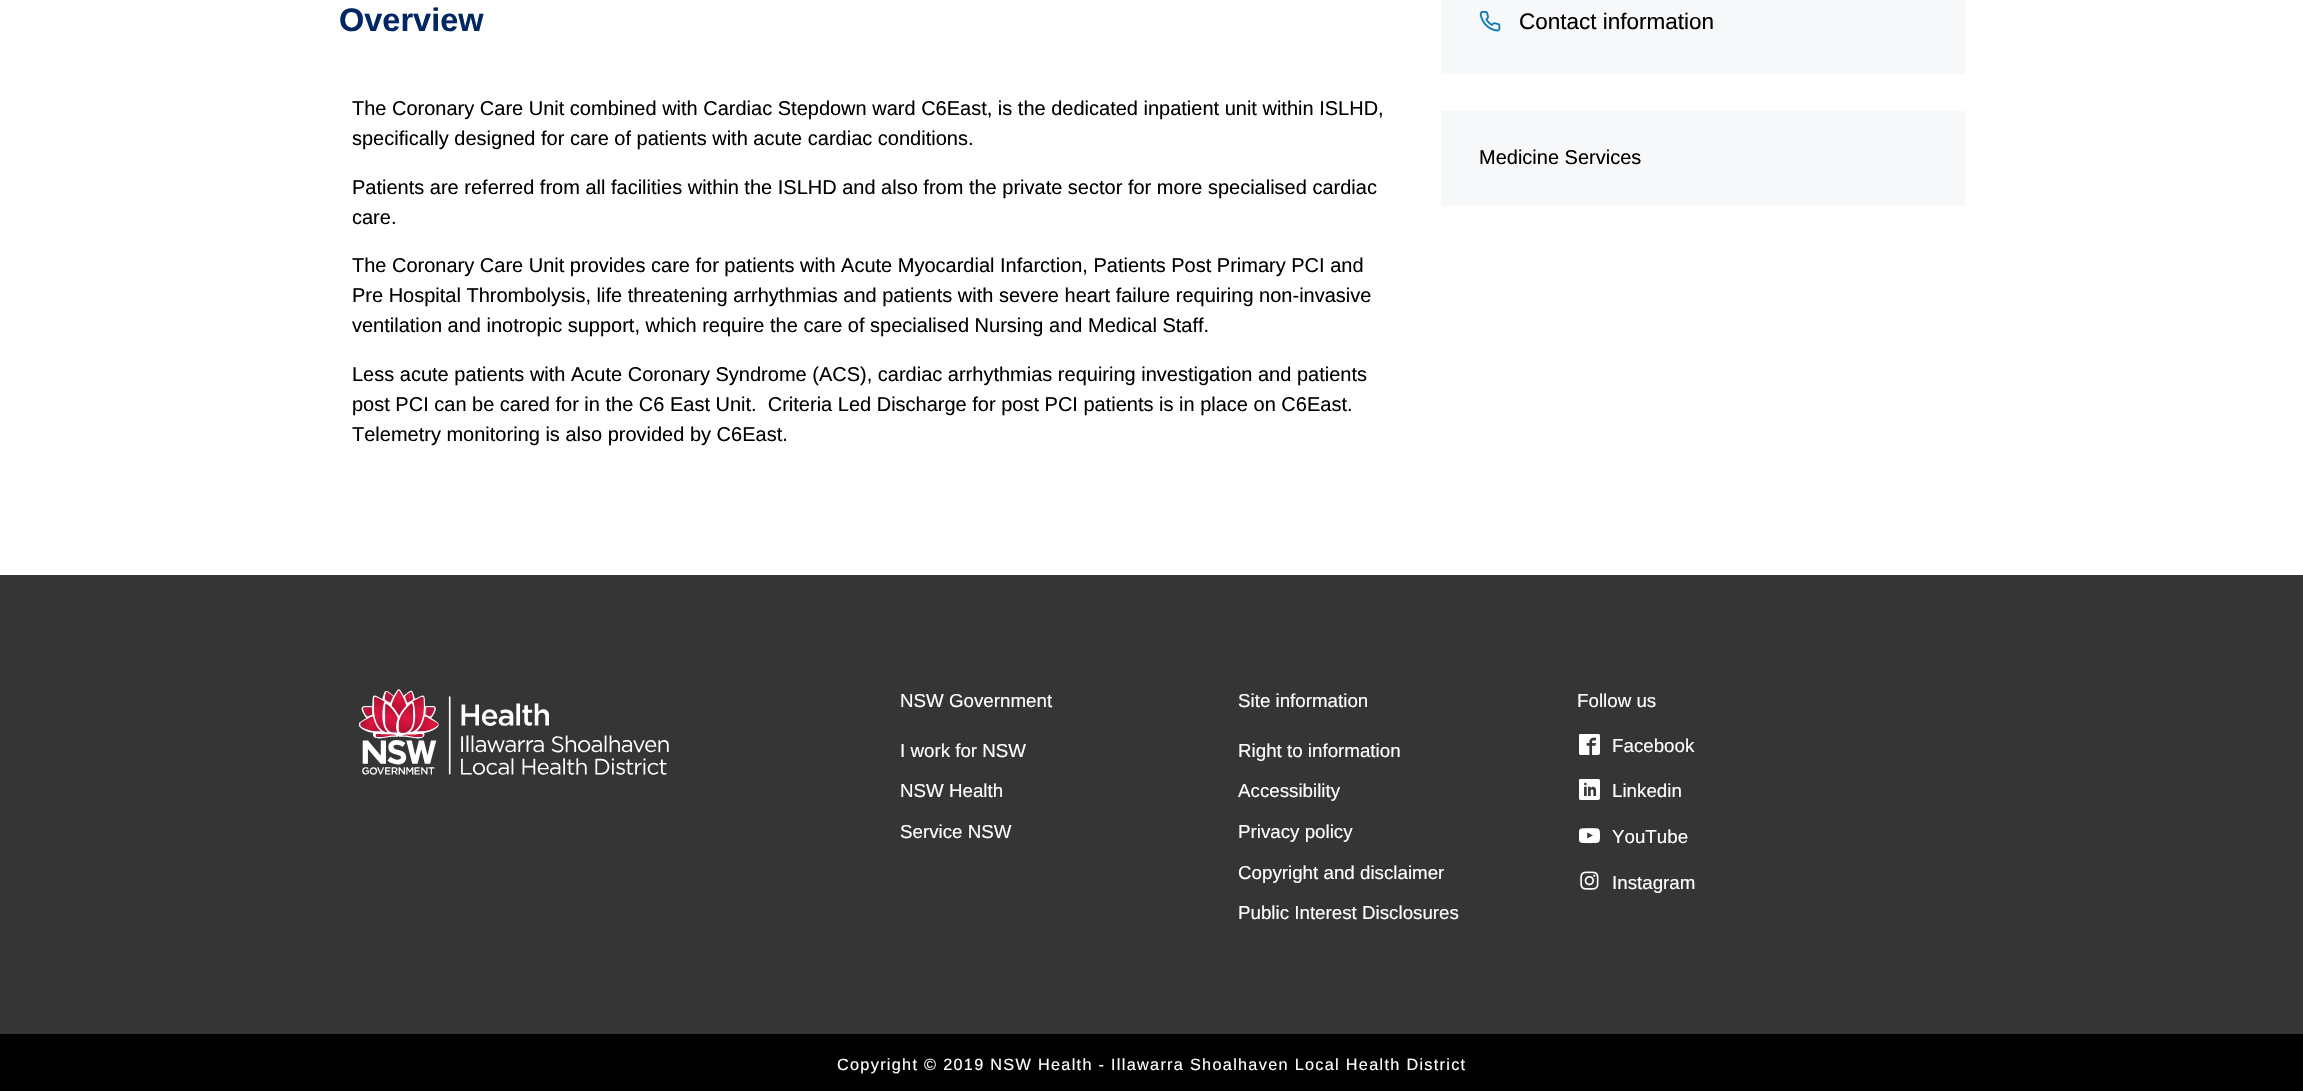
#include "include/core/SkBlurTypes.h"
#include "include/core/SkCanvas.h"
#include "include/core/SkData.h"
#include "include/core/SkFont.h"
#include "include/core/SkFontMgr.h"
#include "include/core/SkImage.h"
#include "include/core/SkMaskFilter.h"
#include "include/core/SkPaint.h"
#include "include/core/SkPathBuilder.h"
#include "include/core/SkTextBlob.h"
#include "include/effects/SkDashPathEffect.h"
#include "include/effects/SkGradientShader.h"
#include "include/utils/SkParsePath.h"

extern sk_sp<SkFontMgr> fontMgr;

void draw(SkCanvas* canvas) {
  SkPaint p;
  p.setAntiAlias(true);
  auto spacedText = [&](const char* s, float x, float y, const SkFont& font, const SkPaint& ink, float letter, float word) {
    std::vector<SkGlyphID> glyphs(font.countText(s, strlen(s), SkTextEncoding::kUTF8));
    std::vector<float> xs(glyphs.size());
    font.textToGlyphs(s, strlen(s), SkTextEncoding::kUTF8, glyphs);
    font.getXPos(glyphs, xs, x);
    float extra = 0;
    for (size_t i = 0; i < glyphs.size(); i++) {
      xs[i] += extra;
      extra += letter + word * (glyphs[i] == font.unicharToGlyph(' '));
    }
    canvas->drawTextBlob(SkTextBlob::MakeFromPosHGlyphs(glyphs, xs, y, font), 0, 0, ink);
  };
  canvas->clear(SK_ColorWHITE);
  p.setColor(SkColorSetRGB(246, 248, 250));
  canvas->drawPath(SkPathBuilder().moveTo(1441, -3).lineTo(1965, -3).lineTo(1965, 71.5f).cubicTo(1965, 73, 1964, 74, 1962.5f, 74).lineTo(1443.5f, 74).cubicTo(1442, 74, 1441, 73, 1441, 71.5f).close().detach(), p);
  canvas->drawImageRect(SkImages::DeferredFromEncodedData(SkData::MakeFromFileName("images/1.png")), SkRect::MakeLTRB(1479, 10, 1501, 32), SkSamplingOptions());
  canvas->drawRect(SkRect::MakeLTRB(1441, 111, 1965, 206), p);
  p.setColor(SkColorSetRGB(54, 53, 53));
  canvas->drawRect(SkRect::MakeLTRB(0, 575, 2303, 1034), p);
  canvas->drawImageRect(SkImages::DeferredFromEncodedData(SkData::MakeFromFileName("images/2.png")), SkRect::MakeLTRB(359, 689, 669, 775), SkSamplingOptions());
  canvas->drawImageRect(SkImages::DeferredFromEncodedData(SkData::MakeFromFileName("images/3.png")), SkRect::MakeLTRB(1579, 734, 1600, 755), SkSamplingOptions());
  canvas->drawImageRect(SkImages::DeferredFromEncodedData(SkData::MakeFromFileName("images/4.png")), SkRect::MakeLTRB(1579, 779, 1600, 800), SkSamplingOptions());
  canvas->drawImageRect(SkImages::DeferredFromEncodedData(SkData::MakeFromFileName("images/5.png")), SkRect::MakeLTRB(1579, 828, 1600, 844), SkSamplingOptions());
  canvas->drawImageRect(SkImages::DeferredFromEncodedData(SkData::MakeFromFileName("images/6.png")), SkRect::MakeLTRB(1580, 871, 1599, 890), SkSamplingOptions());
  p.setColor(SK_ColorBLACK);
  canvas->drawRect(SkRect::MakeLTRB(0, 1034, 2303, 1091), p);
  SkFont font1(fontMgr->matchFamilyStyle("Liberation Sans", SkFontStyle::Bold()), 32.5f);
  font1.setSubpixel(true);
  p.setColor(SkColorSetRGB(0, 38, 100));
  canvas->drawString("Overview", 339, 31, font1, p);
  SkFont font2(fontMgr->matchFamilyStyle("Liberation Sans", SkFontStyle::Normal()), 20);
  font2.setSubpixel(true);
  p.setColor(SK_ColorBLACK);
  canvas->drawString("The Coronary Care Unit combined with Cardiac Stepdown ward C6East, is the dedicated inpatient unit within ISLHD,", 352, 115, font2, p);
  canvas->drawString("specifically designed for care of patients with acute cardiac conditions.", 352, 145, font2, p);
  canvas->drawString("Patients are referred from all facilities within the ISLHD and also from the private sector for more specialised cardiac", 352, 194, font2, p);
  canvas->drawString("care.", 352, 224, font2, p);
  canvas->drawString("The Coronary Care Unit provides care for patients with Acute Myocardial Infarction, Patients Post Primary PCI and", 352, 272, font2, p);
  canvas->drawString("Pre Hospital Thrombolysis, life threatening arrhythmias and patients with severe heart failure requiring non-invasive", 352, 302, font2, p);
  canvas->drawString("ventilation and inotropic support, which require the care of specialised Nursing and Medical Staff.", 352, 332, font2, p);
  canvas->drawString("Less acute patients with Acute Coronary Syndrome (ACS), cardiac arrhythmias requiring investigation and patients", 352, 381, font2, p);
  canvas->drawString("post PCI can be cared for in the C6 East Unit.  Criteria Led Discharge for post PCI patients is in place on C6East.", 352, 411, font2, p);
  canvas->drawString("Telemetry monitoring is also provided by C6East.", 352, 441, font2, p);
  SkFont font3(fontMgr->matchFamilyStyle("Liberation Sans", SkFontStyle::Normal()), 22.5f);
  font3.setSubpixel(true);
  canvas->drawString("Contact information", 1519, 29, font3, p);
  canvas->drawString("Medicine Services", 1479, 164, font2, p);
  SkFont font4(fontMgr->matchFamilyStyle("Liberation Sans", SkFontStyle::Normal()), 18.75f);
  font4.setSubpixel(true);
  p.setColor(SK_ColorWHITE);
  canvas->drawString("NSW Government", 900, 707, font4, p);
  canvas->drawString("I work for NSW", 900, 757, font4, p);
  canvas->drawString("NSW Health", 900, 797, font4, p);
  canvas->drawString("Service NSW", 900, 838, font4, p);
  canvas->drawString("Site information", 1238, 707, font4, p);
  canvas->drawString("Right to information", 1238, 757, font4, p);
  canvas->drawString("Accessibility", 1238, 797, font4, p);
  canvas->drawString("Privacy policy", 1238, 838, font4, p);
  canvas->drawString("Copyright and disclaimer", 1238, 879, font4, p);
  canvas->drawString("Public Interest Disclosures", 1238, 919, font4, p);
  canvas->drawString("Follow us", 1577, 707, font4, p);
  canvas->drawString("Facebook", 1612, 752, font4, p);
  canvas->drawString("Linkedin", 1612, 797, font4, p);
  canvas->drawString("YouTube", 1612, 843, font4, p);
  canvas->drawString("Instagram", 1612, 889, font4, p);
  SkFont font5(fontMgr->matchFamilyStyle("Liberation Sans", SkFontStyle::Normal()), 16.25f);
  font5.setSubpixel(true);
  spacedText("Copyright © 2019 NSW Health - Illawarra Shoalhaven Local Health District", 837, 1070, font5, p, 1.3f, 0);
}
